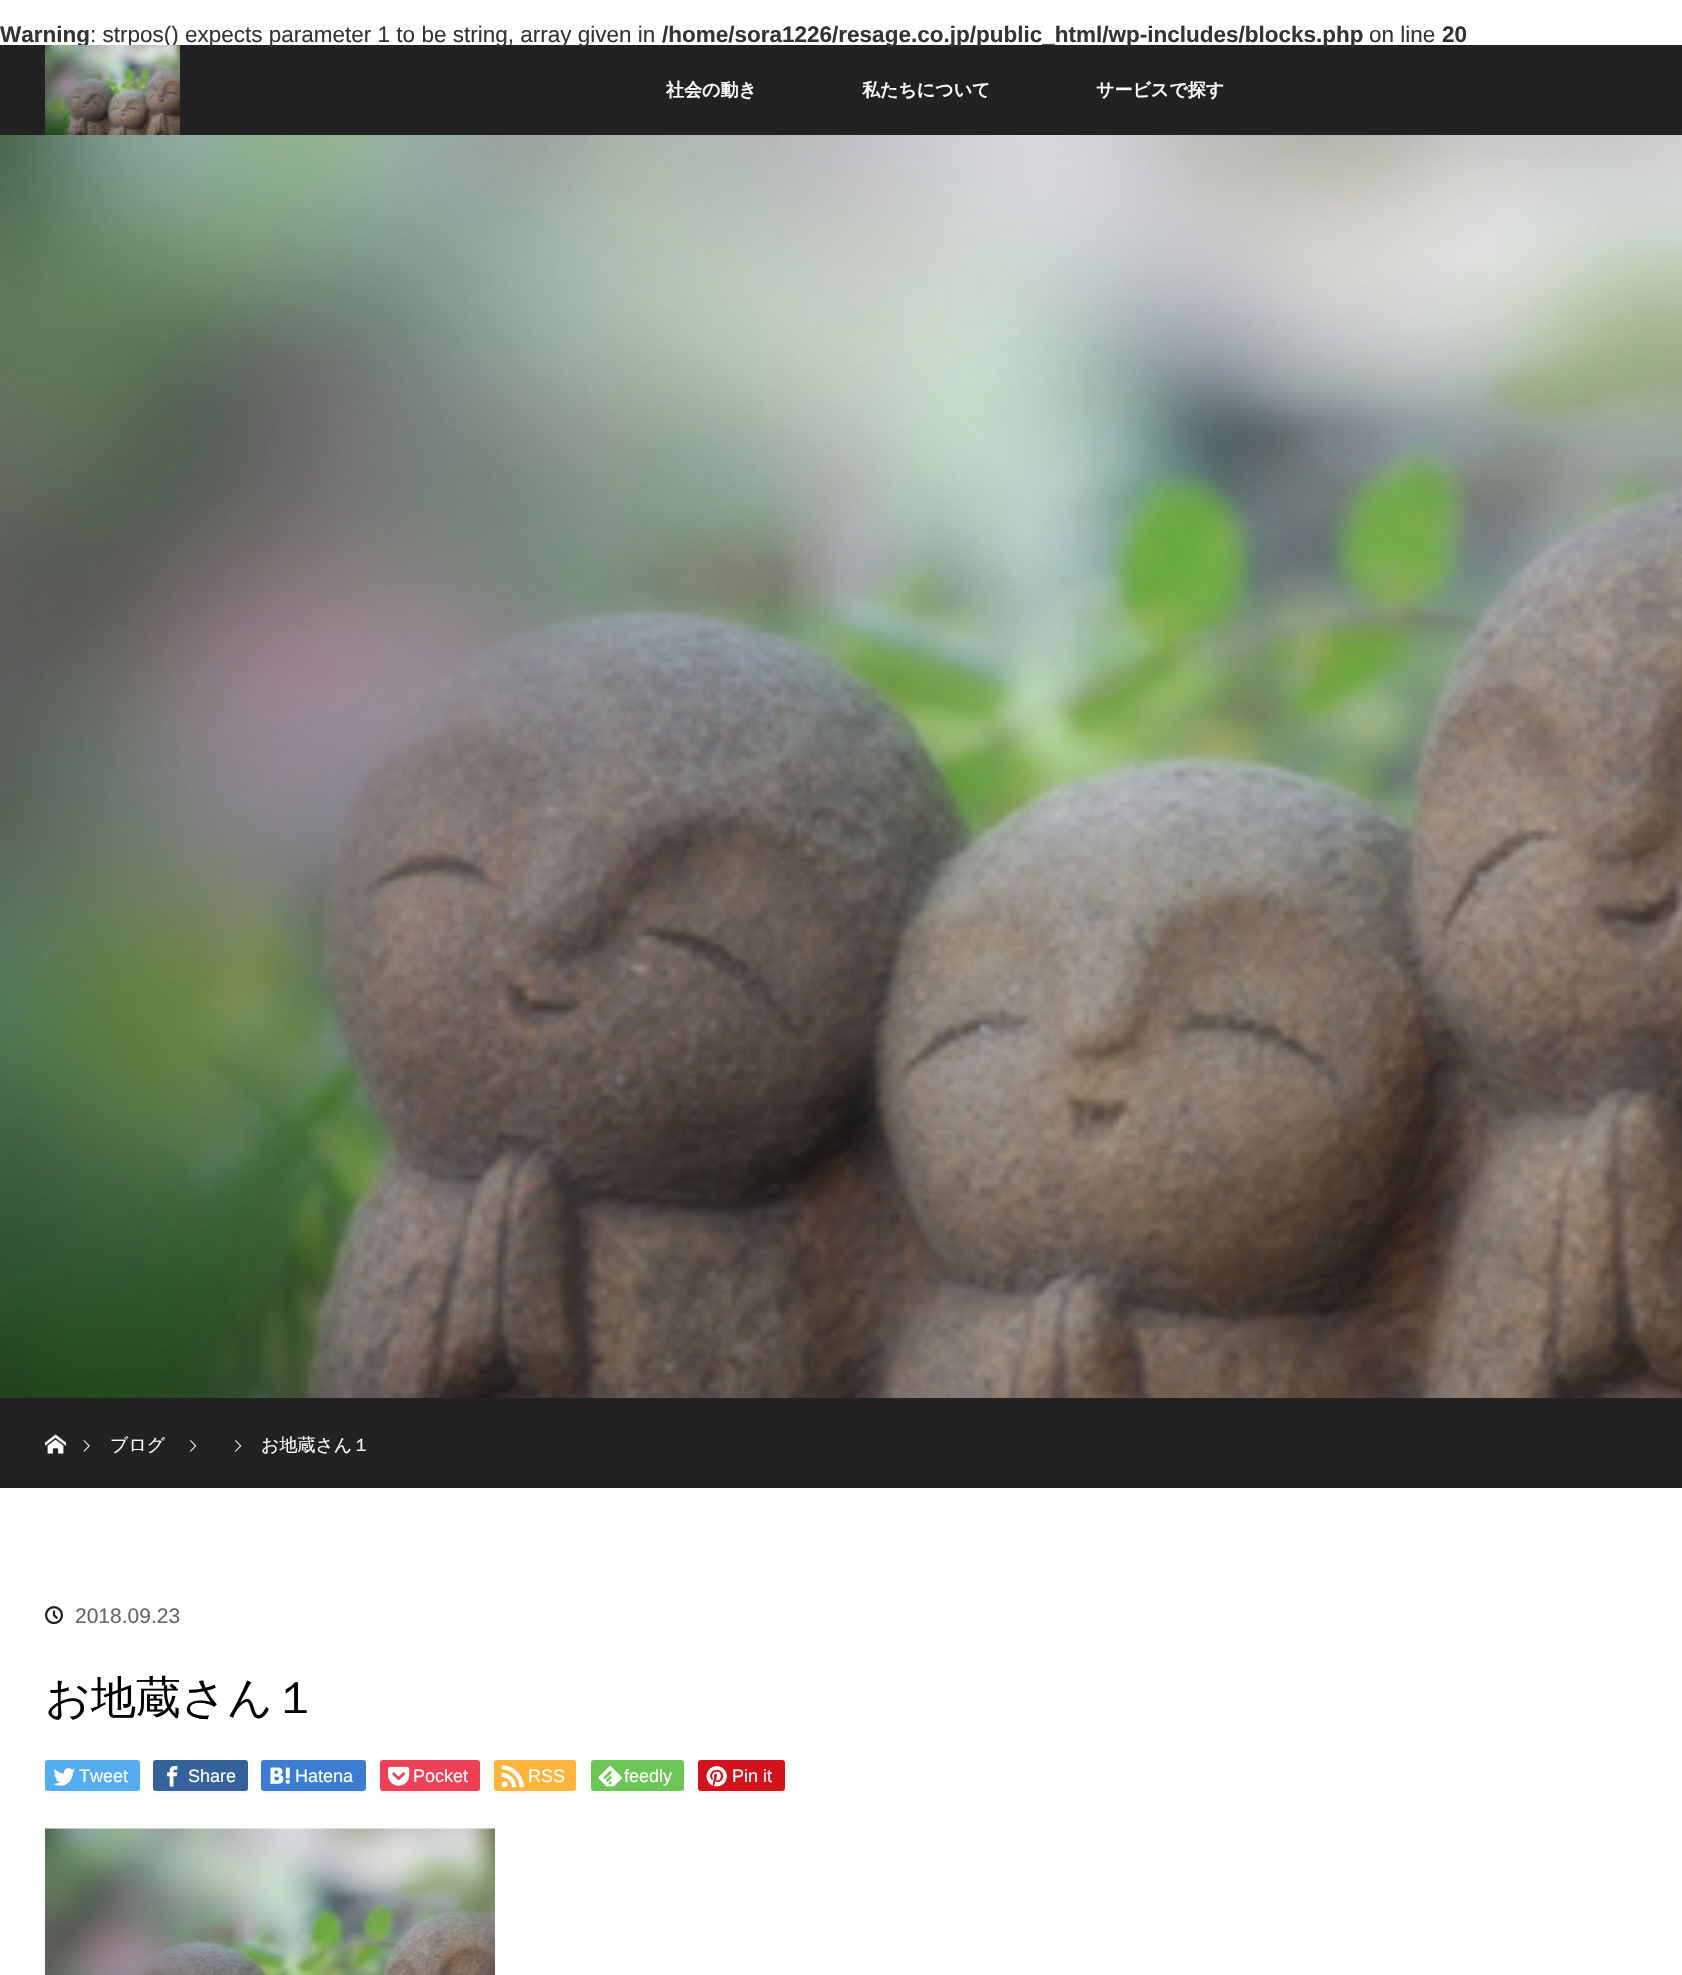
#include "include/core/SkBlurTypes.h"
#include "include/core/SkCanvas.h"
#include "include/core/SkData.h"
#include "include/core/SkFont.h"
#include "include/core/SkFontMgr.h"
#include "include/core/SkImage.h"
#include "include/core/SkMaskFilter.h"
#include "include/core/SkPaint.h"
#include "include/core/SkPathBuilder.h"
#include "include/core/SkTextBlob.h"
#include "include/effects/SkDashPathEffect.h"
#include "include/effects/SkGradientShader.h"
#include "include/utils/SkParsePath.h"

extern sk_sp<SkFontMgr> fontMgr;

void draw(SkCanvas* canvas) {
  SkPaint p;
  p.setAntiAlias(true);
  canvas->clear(SK_ColorWHITE);
  p.setColor(SkColorSetRGB(34, 34, 34));
  canvas->drawRect(SkRect::MakeLTRB(0, 45, 1682, 135), p);
  canvas->drawImageRect(SkImages::DeferredFromEncodedData(SkData::MakeFromFileName("images/2.png")), SkRect::MakeLTRB(0, 135, 1682, 1398), SkSamplingOptions());
  canvas->drawRect(SkRect::MakeLTRB(0, 1398, 1682, 1488), p);
  canvas->drawImageRect(SkImages::DeferredFromEncodedData(SkData::MakeFromFileName("images/3.png")), SkRect::MakeLTRB(45, 1434, 66, 1454), SkSamplingOptions());
  canvas->drawImageRect(SkImages::DeferredFromEncodedData(SkData::MakeFromFileName("images/4.png")), SkRect::MakeLTRB(83, 1440, 90, 1452), SkSamplingOptions());
  canvas->drawImageRect(SkImages::DeferredFromEncodedData(SkData::MakeFromFileName("images/5.png")), SkRect::MakeLTRB(190, 1440, 197, 1452), SkSamplingOptions());
  canvas->drawImageRect(SkImages::DeferredFromEncodedData(SkData::MakeFromFileName("images/5.png")), SkRect::MakeLTRB(235, 1440, 242, 1452), SkSamplingOptions());
  canvas->drawImageRect(SkImages::DeferredFromEncodedData(SkData::MakeFromFileName("images/6.png")), SkRect::MakeLTRB(45, 1606, 63, 1625), SkSamplingOptions());
  p.setColor(SkColorSetRGB(247, 247, 247));
  canvas->drawPath(SkPathBuilder().moveTo(45, 1788).lineTo(45, 1790).cubicTo(45, 1792, 46, 1793, 48, 1793).lineTo(137, 1793).cubicTo(139, 1793, 140, 1792, 140, 1790).lineTo(140, 1764).lineTo(139, 1762).lineTo(140, 1784).cubicTo(140, 1786, 140, 1791, 136, 1791).lineTo(63, 1791).cubicTo(56, 1791, 45, 1794, 45, 1788).close().detach(), p);
  p.setColor(SkColorSetRGB(85, 172, 238));
  canvas->drawRoundRect(SkRect::MakeLTRB(45, 1760, 140, 1791), 3, 3, p);
  canvas->drawImageRect(SkImages::DeferredFromEncodedData(SkData::MakeFromFileName("images/7.png")), SkRect::MakeLTRB(53, 1768, 75, 1786), SkSamplingOptions());
  p.setColor(SkColorSetRGB(247, 247, 247));
  canvas->drawPath(SkPathBuilder().moveTo(153, 1788).lineTo(153, 1790).cubicTo(153, 1792, 154, 1793, 156, 1793).lineTo(245, 1793).cubicTo(247, 1793, 248, 1792, 248, 1790).lineTo(248, 1764).lineTo(247, 1762).lineTo(248, 1784).cubicTo(248, 1786, 248, 1791, 244, 1791).lineTo(171, 1791).cubicTo(164, 1791, 153, 1794, 153, 1788).close().detach(), p);
  p.setColor(SkColorSetRGB(53, 98, 154));
  canvas->drawRoundRect(SkRect::MakeLTRB(153, 1760, 248, 1791), 3, 3, p);
  canvas->drawImageRect(SkImages::DeferredFromEncodedData(SkData::MakeFromFileName("images/8.png")), SkRect::MakeLTRB(167, 1766, 178, 1787), SkSamplingOptions());
  p.setColor(SkColorSetRGB(247, 247, 247));
  canvas->drawPath(SkPathBuilder().moveTo(261, 1788).lineTo(261, 1790).cubicTo(261, 1792, 262, 1793, 264, 1793).lineTo(363, 1793).cubicTo(365, 1793, 366, 1792, 366, 1790).lineTo(366, 1788).cubicTo(366, 1790, 365, 1791, 363, 1791).lineTo(264, 1791).cubicTo(262, 1791, 261, 1790, 261, 1788).close().detach(), p);
  p.setColor(SkColorSetRGB(60, 125, 209));
  canvas->drawRoundRect(SkRect::MakeLTRB(261, 1760, 366, 1791), 3, 3, p);
  canvas->drawImageRect(SkImages::DeferredFromEncodedData(SkData::MakeFromFileName("images/9.png")), SkRect::MakeLTRB(270, 1767, 290, 1784), SkSamplingOptions());
  p.setColor(SkColorSetRGB(247, 247, 247));
  canvas->drawPath(SkPathBuilder().moveTo(380, 1790).cubicTo(380, 1792, 381, 1793, 383, 1793).lineTo(477, 1793).cubicTo(479, 1793, 480, 1792, 480, 1790).lineTo(480, 1788).cubicTo(480, 1790, 479, 1791, 477, 1791).lineTo(382, 1791).close().detach(), p);
  p.setColor(SkColorSetRGB(238, 64, 86));
  canvas->drawRoundRect(SkRect::MakeLTRB(380, 1760, 480, 1791), 3, 3, p);
  canvas->drawImageRect(SkImages::DeferredFromEncodedData(SkData::MakeFromFileName("images/10.png")), SkRect::MakeLTRB(388, 1766, 410, 1786), SkSamplingOptions());
  p.setColor(SkColorSetRGB(247, 247, 247));
  canvas->drawPath(SkPathBuilder().moveTo(494, 1790).lineTo(495, 1792).lineTo(496, 1793).lineTo(573, 1793).cubicTo(576, 1793, 576, 1790, 576, 1788).lineTo(575, 1790).lineTo(574, 1791).lineTo(509, 1791).cubicTo(509, 1791, 496, 1793, 494, 1790).close().detach(), p);
  p.setColor(SkColorSetRGB(255, 181, 60));
  canvas->drawRoundRect(SkRect::MakeLTRB(494, 1760, 576, 1791), 3, 3, p);
  canvas->drawImageRect(SkImages::DeferredFromEncodedData(SkData::MakeFromFileName("images/11.png")), SkRect::MakeLTRB(501, 1765, 524, 1788), SkSamplingOptions());
  p.setColor(SkColorSetRGB(247, 247, 247));
  canvas->drawPath(SkPathBuilder().moveTo(591, 1788).lineTo(591, 1790).cubicTo(591, 1792, 592, 1793, 594, 1793).lineTo(681, 1793).cubicTo(683, 1793, 684, 1792, 684, 1790).lineTo(684, 1788).cubicTo(684, 1790, 683, 1791, 681, 1791).lineTo(594, 1791).cubicTo(592, 1791, 591, 1790, 591, 1788).close().detach(), p);
  p.setColor(SkColorSetRGB(108, 198, 85));
  canvas->drawRoundRect(SkRect::MakeLTRB(591, 1760, 684, 1791), 3, 3, p);
  canvas->drawImageRect(SkImages::DeferredFromEncodedData(SkData::MakeFromFileName("images/12.png")), SkRect::MakeLTRB(598, 1766, 622, 1787), SkSamplingOptions());
  p.setColor(SkColorSetRGB(247, 247, 247));
  canvas->drawPath(SkPathBuilder().moveTo(698, 1790).lineTo(699, 1792).lineTo(701, 1793).lineTo(768, 1793).cubicTo(788, 1793, 785, 1796, 785, 1777).cubicTo(785, 1774, 786, 1764, 784, 1762).lineTo(784, 1788).cubicTo(784, 1790, 783, 1791, 782, 1791).lineTo(700, 1791).cubicTo(699, 1791, 699, 1790, 698, 1790).close().detach(), p);
  p.setColor(SkColorSetRGB(212, 18, 28));
  canvas->drawRoundRect(SkRect::MakeLTRB(698, 1760, 785, 1791), 3, 3, p);
  canvas->drawImageRect(SkImages::DeferredFromEncodedData(SkData::MakeFromFileName("images/13.png")), SkRect::MakeLTRB(706, 1766, 727, 1787), SkSamplingOptions());
  canvas->drawImageRect(SkImages::DeferredFromEncodedData(SkData::MakeFromFileName("images/14.png")), SkRect::MakeLTRB(45, 1828, 495, 1975), SkSamplingOptions());
  SkFont font1(fontMgr->matchFamilyStyle("Liberation Sans", SkFontStyle::Bold()), 22.5f);
  font1.setSubpixel(true);
  p.setColor(SkColorSetRGB(51, 51, 51));
  canvas->drawString("Warning", 0, 42, font1, p);
  SkFont font2(fontMgr->matchFamilyStyle("Liberation Sans", SkFontStyle::Normal()), 22.5f);
  font2.setSubpixel(true);
  canvas->drawString(": strpos() expects parameter 1 to be string, array given in", 90, 42, font2, p);
  canvas->drawString("/home/sora1226/resage.co.jp/public_html/wp-includes/blocks.php", 662, 42, font1, p);
  canvas->drawString("on line", 1369, 42, font2, p);
  canvas->drawString("20", 1442, 42, font1, p);
  canvas->drawImageRect(SkImages::DeferredFromEncodedData(SkData::MakeFromFileName("images/1.png")), SkRect::MakeLTRB(45, 45, 180, 135), SkSamplingOptions());
  SkFont font3(fontMgr->matchFamilyStyle("WenQuanYi Zen Hei", SkFontStyle::Bold()), 18);
  font3.setSubpixel(true);
  p.setColor(SK_ColorWHITE);
  canvas->drawString("社会の動き", 666, 96, font3, p);
  canvas->drawString("私たちについて", 862, 96, font3, p);
  canvas->drawString("サービスで探す", 1096, 96, font3, p);
  SkFont font4(fontMgr->matchFamilyStyle("WenQuanYi Zen Hei", SkFontStyle(500, SkFontStyle::kNormal_Width, SkFontStyle::kUpright_Slant)), 18);
  font4.setSubpixel(true);
  canvas->drawString("ブログ", 110, 1451, font4, p);
  canvas->drawString("お地蔵さん１", 261, 1451, font4, p);
  SkFont font5(fontMgr->matchFamilyStyle("Liberation Sans", SkFontStyle::Normal()), 21);
  font5.setSubpixel(true);
  p.setColor(SkColorSetRGB(102, 102, 102));
  canvas->drawString("2018.09.23", 75, 1623, font5, p);
  SkFont font6(fontMgr->matchFamilyStyle("WenQuanYi Zen Hei", SkFontStyle(500, SkFontStyle::kNormal_Width, SkFontStyle::kUpright_Slant)), 45);
  font6.setSubpixel(true);
  p.setColor(SK_ColorBLACK);
  canvas->drawString("お地蔵さん１", 45, 1713, font6, p);
  SkFont font7(fontMgr->matchFamilyStyle("Liberation Sans", SkFontStyle::Normal()), 18);
  font7.setSubpixel(true);
  p.setColor(SK_ColorWHITE);
  canvas->drawString("Tweet", 79, 1782, font7, p);
  canvas->drawString("Share", 188, 1782, font7, p);
  canvas->drawString("Hatena", 295, 1782, font7, p);
  canvas->drawString("Pocket", 413, 1782, font7, p);
  canvas->drawString("RSS", 528, 1782, font7, p);
  canvas->drawString("feedly", 624, 1782, font7, p);
  canvas->drawString("Pin it", 732, 1782, font7, p);
}
